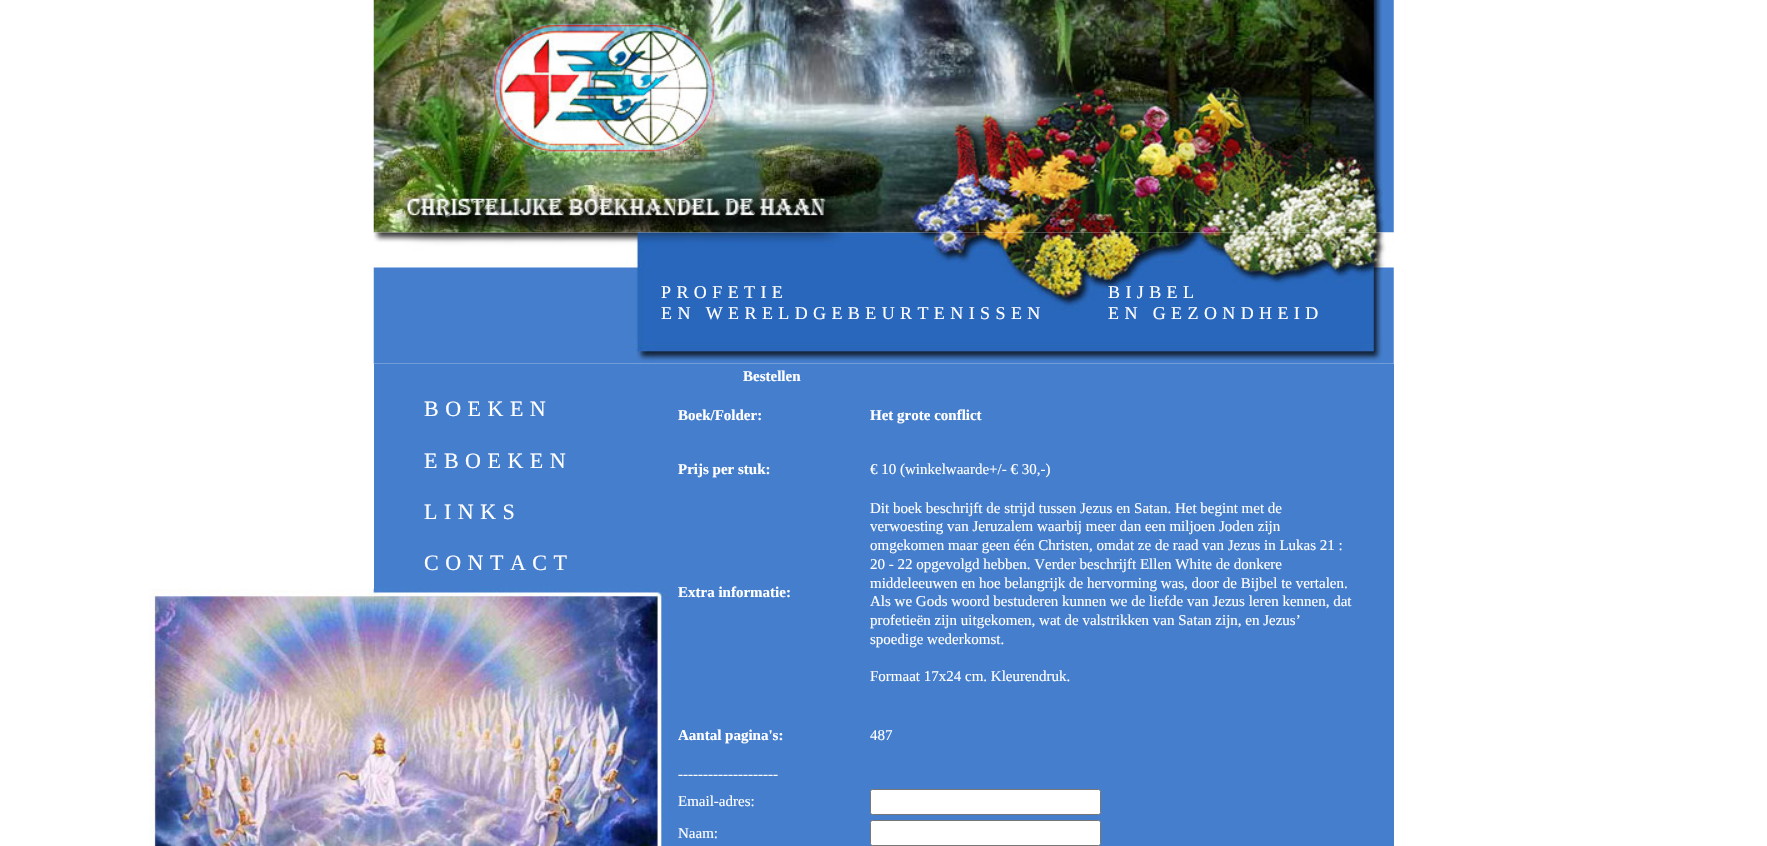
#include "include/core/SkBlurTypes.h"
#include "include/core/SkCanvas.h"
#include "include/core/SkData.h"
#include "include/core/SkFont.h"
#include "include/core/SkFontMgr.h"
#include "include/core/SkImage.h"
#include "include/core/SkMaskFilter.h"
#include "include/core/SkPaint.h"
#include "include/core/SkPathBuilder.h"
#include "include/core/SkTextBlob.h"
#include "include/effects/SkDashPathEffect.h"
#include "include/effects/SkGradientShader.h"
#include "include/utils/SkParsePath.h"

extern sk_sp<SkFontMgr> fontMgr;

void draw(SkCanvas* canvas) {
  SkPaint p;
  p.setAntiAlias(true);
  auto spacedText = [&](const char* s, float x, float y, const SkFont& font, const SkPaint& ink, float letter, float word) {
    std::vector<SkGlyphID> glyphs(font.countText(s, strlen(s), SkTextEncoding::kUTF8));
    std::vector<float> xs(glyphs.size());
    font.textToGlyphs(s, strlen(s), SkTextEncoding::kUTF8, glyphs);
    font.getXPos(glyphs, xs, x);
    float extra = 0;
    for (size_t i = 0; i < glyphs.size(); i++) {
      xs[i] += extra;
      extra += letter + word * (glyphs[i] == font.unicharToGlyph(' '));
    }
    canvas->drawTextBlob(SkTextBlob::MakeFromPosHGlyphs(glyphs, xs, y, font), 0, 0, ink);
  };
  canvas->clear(SK_ColorWHITE);
  canvas->drawImageRect(SkImages::DeferredFromEncodedData(SkData::MakeFromFileName("images/1.png")), SkRect::MakeLTRB(373, 0, 1394, 233), SkSamplingOptions());
  canvas->drawImageRect(SkImages::DeferredFromEncodedData(SkData::MakeFromFileName("images/2.png")), SkRect::MakeLTRB(373, 232, 1394, 364), SkSamplingOptions());
  p.setColor(SkColorSetRGB(69, 126, 205));
  canvas->drawRect(SkRect::MakeLTRB(374, 364, 1394, 846), p);
  canvas->drawImageRect(SkImages::DeferredFromEncodedData(SkData::MakeFromFileName("images/3.png")), SkRect::MakeLTRB(149, 588, 668, 846), SkSamplingOptions());
  p.setColor(SK_ColorWHITE);
  canvas->drawRoundRect(SkRect::MakeLTRB(870.5f, 789.5f, 1100.5f, 814.5f), 2, 2, p);
  p.setStyle(SkPaint::kStroke_Style);
  p.setStrokeWidth(1);
  p.setColor(SkColorSetRGB(118, 118, 118));
  canvas->drawRoundRect(SkRect::MakeLTRB(870.5f, 789.5f, 1100.5f, 814.5f), 2, 2, p);
  p.setStyle(SkPaint::kFill_Style);
  p.setColor(SK_ColorWHITE);
  canvas->drawRoundRect(SkRect::MakeLTRB(870.5f, 820.5f, 1100.5f, 845.5f), 2, 2, p);
  p.setStyle(SkPaint::kStroke_Style);
  p.setColor(SkColorSetRGB(118, 118, 118));
  canvas->drawRoundRect(SkRect::MakeLTRB(870.5f, 820.5f, 1100.5f, 845.5f), 2, 2, p);
  SkFont font1(fontMgr->matchFamilyStyle("Liberation Serif", SkFontStyle::Normal()), 18);
  font1.setSubpixel(true);
  p.setStyle(SkPaint::kFill_Style);
  p.setColor(SK_ColorWHITE);
  spacedText("PROFETIE", 661, 298, font1, p, 5.4f, 0);
  spacedText("EN WERELDGEBEURTENISSEN", 661, 319, font1, p, 5.4f, 0);
  spacedText("BIJBEL", 1108, 298, font1, p, 5.4f, 0);
  spacedText("EN GEZONDHEID", 1108, 319, font1, p, 5.4f, 0);
  SkFont font2(fontMgr->matchFamilyStyle("Liberation Serif", SkFontStyle::Normal()), 22);
  font2.setSubpixel(true);
  spacedText("BOEKEN", 424, 416, font2, p, 6.5f, 0);
  spacedText("EBOEKEN", 424, 468, font2, p, 6.5f, 0);
  spacedText("LINKS", 424, 519, font2, p, 6.5f, 0);
  spacedText("CONTACT", 424, 570, font2, p, 6.5f, 0);
  SkFont font3(fontMgr->matchFamilyStyle("Liberation Serif", SkFontStyle::Bold()), 15);
  font3.setSubpixel(true);
  canvas->drawString("Bestellen", 743, 381, font3, p);
  canvas->drawString("Boek/Folder:", 678, 420, font3, p);
  canvas->drawString("Het grote conflict", 870, 420, font3, p);
  canvas->drawString("Prijs per stuk:", 678, 474, font3, p);
  SkFont font4(fontMgr->matchFamilyStyle("Liberation Serif", SkFontStyle::Normal()), 15);
  font4.setSubpixel(true);
  canvas->drawString("€ 10 (winkelwaarde+/- € 30,-)", 870, 474, font4, p);
  canvas->drawString("Extra informatie:", 678, 597, font3, p);
  canvas->drawString("Dit boek beschrijft de strijd tussen Jezus en Satan. Het begint met de", 870, 513, font4, p);
  canvas->drawString("verwoesting van Jeruzalem waarbij meer dan een miljoen Joden zijn", 870, 531, font4, p);
  canvas->drawString("omgekomen maar geen één Christen, omdat ze de raad van Jezus in Lukas 21 :", 870, 550, font4, p);
  canvas->drawString("20 - 22 opgevolgd hebben. Verder beschrijft Ellen White de donkere", 870, 569, font4, p);
  canvas->drawString("middeleeuwen en hoe belangrijk de hervorming was, door de Bijbel te vertalen.", 870, 588, font4, p);
  canvas->drawString("Als we Gods woord bestuderen kunnen we de liefde van Jezus leren kennen, dat", 870, 606, font4, p);
  canvas->drawString("profetieën zijn uitgekomen, wat de valstrikken van Satan zijn, en Jezus’", 870, 625, font4, p);
  canvas->drawString("spoedige wederkomst.", 870, 644, font4, p);
  canvas->drawString("Formaat 17x24 cm. Kleurendruk.", 870, 681, font4, p);
  canvas->drawString("Aantal pagina's:", 678, 740, font3, p);
  canvas->drawString("487", 870, 740, font4, p);
  canvas->drawString("--------------------", 678, 779, font4, p);
  canvas->drawString("Email-adres:", 678, 806, font4, p);
  canvas->drawString("Naam:", 678, 838, font4, p);
}
